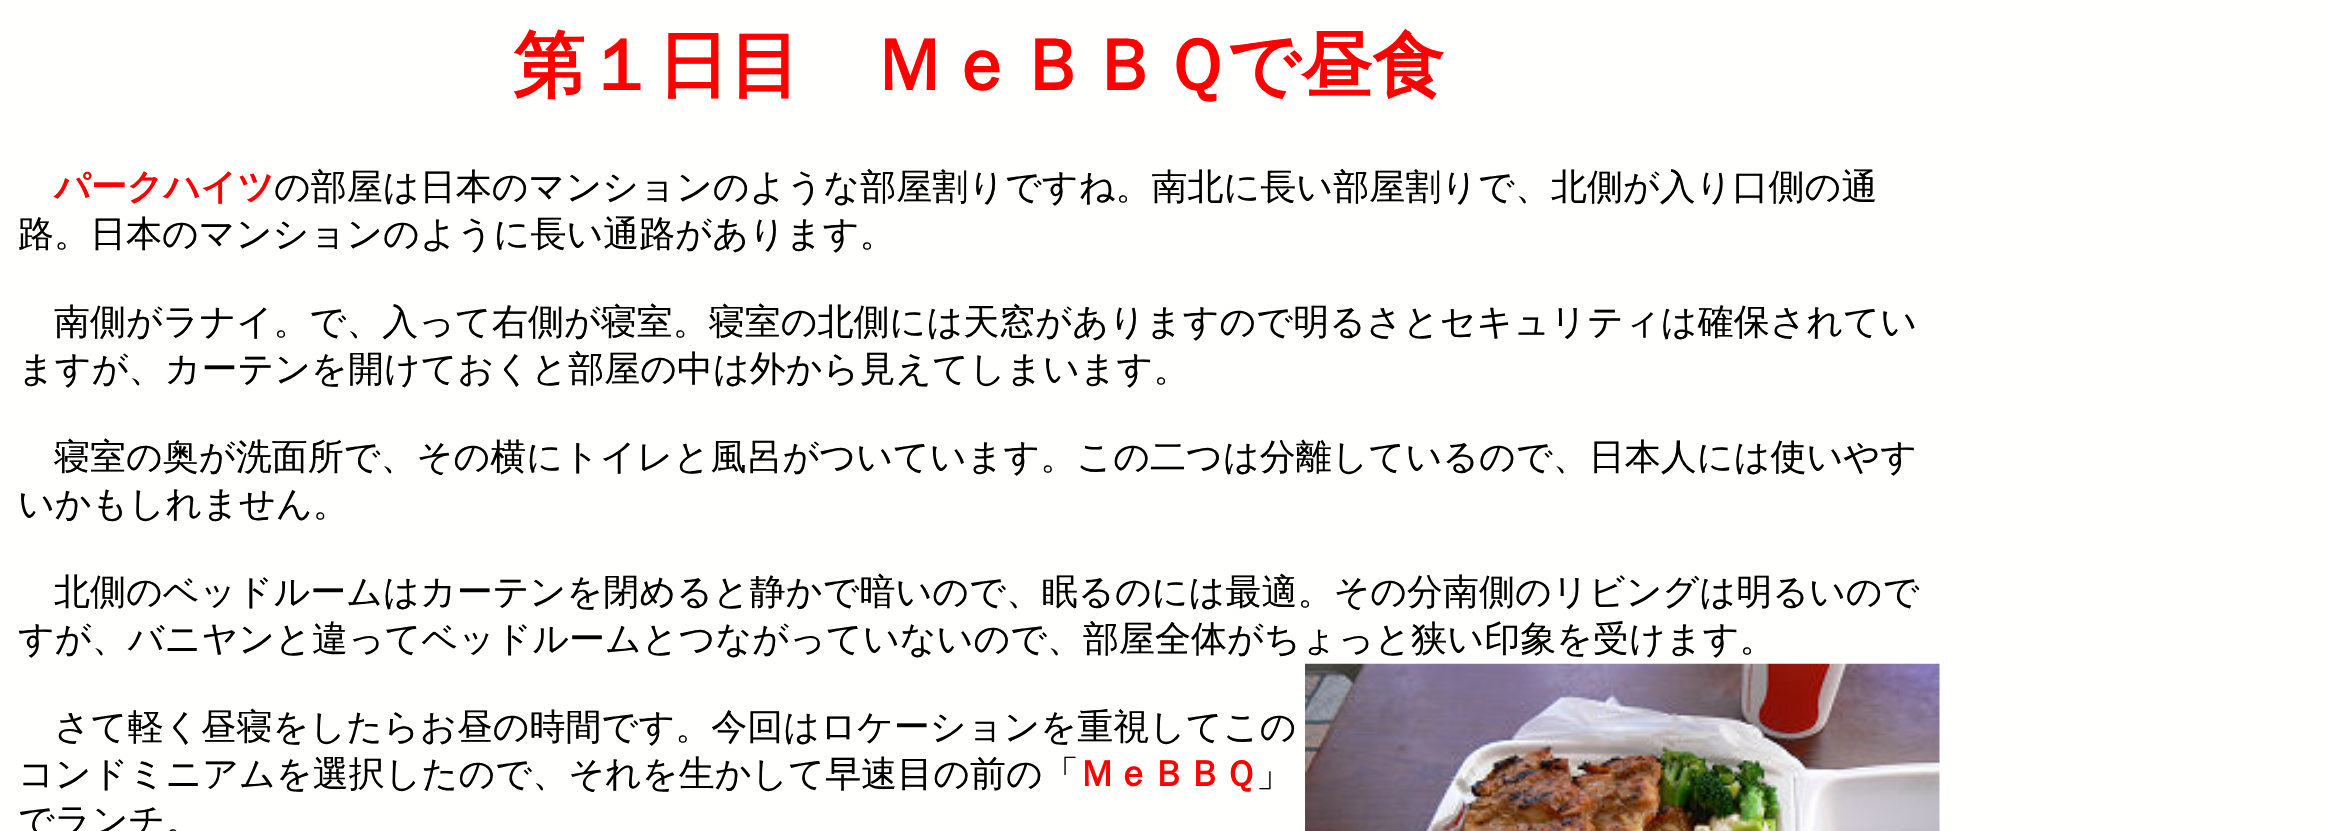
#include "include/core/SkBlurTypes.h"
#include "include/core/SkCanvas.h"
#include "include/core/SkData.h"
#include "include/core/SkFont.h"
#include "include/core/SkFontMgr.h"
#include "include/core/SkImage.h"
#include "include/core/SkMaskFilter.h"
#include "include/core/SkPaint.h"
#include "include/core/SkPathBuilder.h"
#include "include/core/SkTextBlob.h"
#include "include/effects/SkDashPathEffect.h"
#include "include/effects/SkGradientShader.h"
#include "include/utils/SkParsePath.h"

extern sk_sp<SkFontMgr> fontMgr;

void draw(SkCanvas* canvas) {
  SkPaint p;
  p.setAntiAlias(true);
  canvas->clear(SkColorSetRGB(255, 255, 253));
  canvas->drawImageRect(SkImages::DeferredFromEncodedData(SkData::MakeFromFileName("images/1.png")), SkRect::MakeLTRB(1305, 663, 1940, 831), SkSamplingOptions());
  SkFont font1(fontMgr->matchFamilyStyle("WenQuanYi Zen Hei", SkFontStyle::Bold()), 72);
  font1.setSubpixel(true);
  p.setColor(SkColorSetRGB(255, 0, 0));
  canvas->drawString("第１日目　ＭｅＢＢＱで昼食", 513, 90, font1, p);
  SkFont font2(fontMgr->matchFamilyStyle("WenQuanYi Zen Hei", SkFontStyle::Bold()), 36);
  font2.setSubpixel(true);
  canvas->drawString("パークハイツ", 54, 199, font2, p);
  SkFont font3(fontMgr->matchFamilyStyle("WenQuanYi Zen Hei", SkFontStyle(500, SkFontStyle::kNormal_Width, SkFontStyle::kUpright_Slant)), 36);
  font3.setSubpixel(true);
  p.setColor(SK_ColorBLACK);
  canvas->drawString("の部屋は日本のマンションのような部屋割りですね。南北に長い部屋割りで、北側が入り口側の通", 274, 199, font3, p);
  canvas->drawString("路。日本のマンションのように長い通路があります。", 18, 246, font3, p);
  canvas->drawString("南側がラナイ。で、入って右側が寝室。寝室の北側には天窓がありますので明るさとセキュリティは確保されてい", 54, 334, font3, p);
  canvas->drawString("ますが、カーテンを開けておくと部屋の中は外から見えてしまいます。", 18, 381, font3, p);
  canvas->drawString("寝室の奥が洗面所で、その横にトイレと風呂がついています。この二つは分離しているので、日本人には使いやす", 54, 469, font3, p);
  canvas->drawString("いかもしれません。", 18, 516, font3, p);
  canvas->drawString("北側のベッドルームはカーテンを閉めると静かで暗いので、眠るのには最適。その分南側のリビングは明るいので", 54, 604, font3, p);
  canvas->drawString("すが、バニヤンと違ってベッドルームとつながっていないので、部屋全体がちょっと狭い印象を受けます。", 18, 651, font3, p);
  canvas->drawString("さて軽く昼寝をしたらお昼の時間です。今回はロケーションを重視してこの", 54, 739, font3, p);
  canvas->drawString("コンドミニアムを選択したので、それを生かして早速目の前の「", 18, 786, font3, p);
  p.setColor(SkColorSetRGB(255, 0, 0));
  canvas->drawString("ＭｅＢＢＱ", 1079, 786, font2, p);
  p.setColor(SK_ColorBLACK);
  canvas->drawString("」", 1256, 786, font3, p);
  canvas->drawString("でランチ。", 18, 833, font3, p);
}
